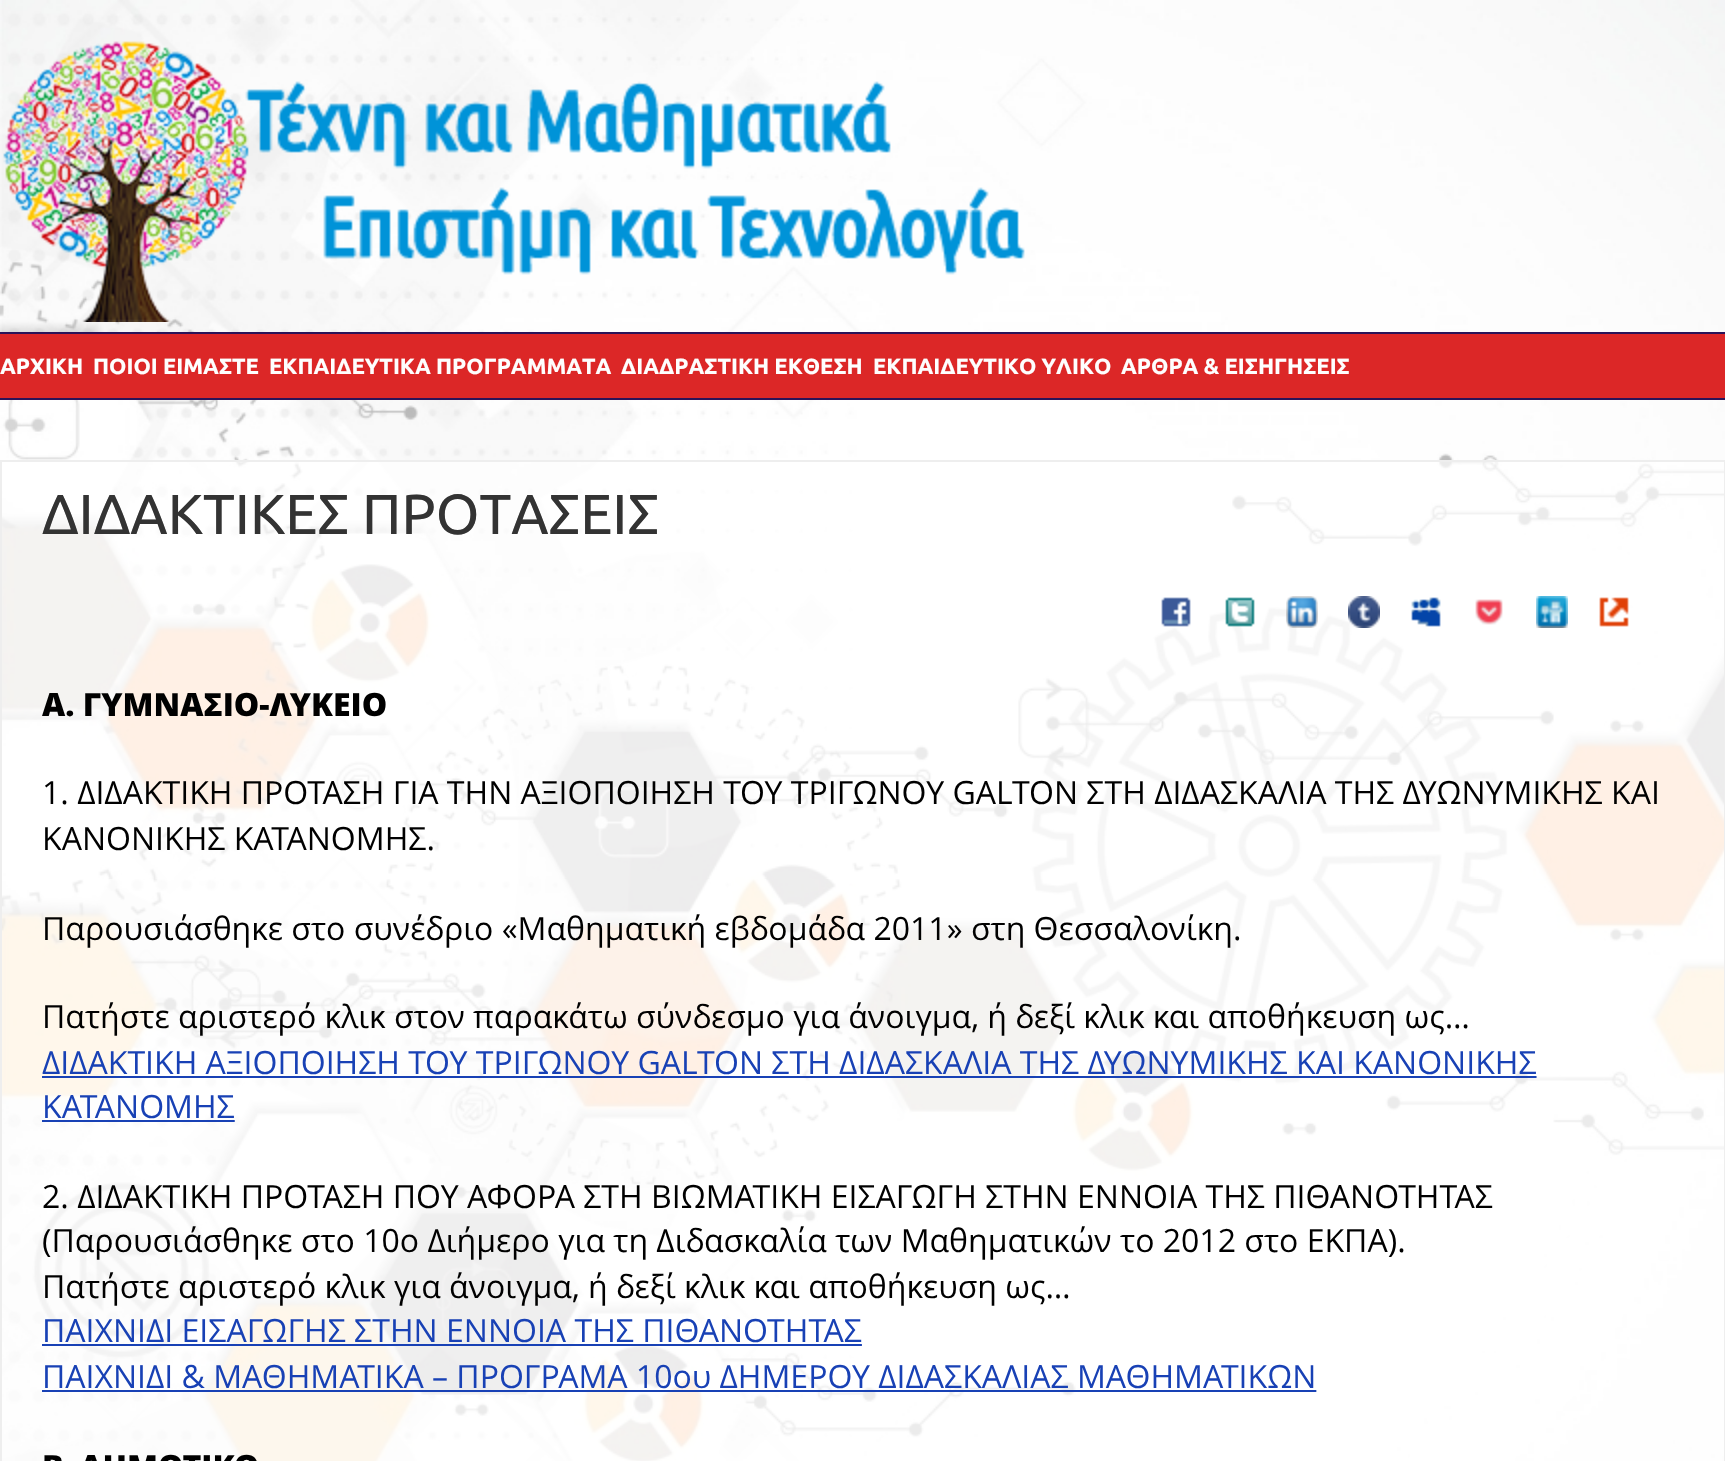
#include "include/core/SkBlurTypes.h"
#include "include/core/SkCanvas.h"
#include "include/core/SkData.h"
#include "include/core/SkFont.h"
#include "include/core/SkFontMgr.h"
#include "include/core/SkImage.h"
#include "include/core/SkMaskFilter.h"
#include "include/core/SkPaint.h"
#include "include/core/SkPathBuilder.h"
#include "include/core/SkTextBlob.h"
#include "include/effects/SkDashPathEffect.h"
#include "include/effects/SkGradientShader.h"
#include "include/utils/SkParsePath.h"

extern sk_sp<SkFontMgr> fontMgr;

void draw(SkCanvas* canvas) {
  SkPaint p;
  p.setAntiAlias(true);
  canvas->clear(SK_ColorWHITE);
  canvas->drawImageRect(SkImages::DeferredFromEncodedData(SkData::MakeFromFileName("images/1.png")), SkRect::MakeLTRB(0, 0, 1725, 1461), SkSamplingOptions());
  canvas->drawImageRect(SkImages::DeferredFromEncodedData(SkData::MakeFromFileName("images/2.png")), SkRect::MakeLTRB(3, 41, 1025, 322), SkSamplingOptions());
  p.setColor(SkColorSetRGB(220, 39, 39));
  canvas->drawRect(SkRect::MakeLTRB(0, 334, 1725, 398), p);
  p.setColor(SkColorSetRGB(43, 19, 88));
  canvas->drawRect(SkRect::MakeLTRB(0, 332, 1725, 334), p);
  canvas->drawRect(SkRect::MakeLTRB(0, 398, 1725, 400), p);
  p.setColor(SkColorSetARGB(179, 255, 255, 255));
  canvas->drawRect(SkRect::MakeLTRB(1, 461, 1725, 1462), p);
  p.setStyle(SkPaint::kStroke_Style);
  p.setStrokeWidth(2);
  p.setColor(SkColorSetRGB(238, 238, 238));
  canvas->drawRect(SkRect::MakeLTRB(1, 461, 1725, 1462), p);
  canvas->drawImageRect(SkImages::DeferredFromEncodedData(SkData::MakeFromFileName("images/3.png")), SkRect::MakeLTRB(42, 596, 1657, 1461), SkSamplingOptions());
  SkFont font1(fontMgr->matchFamilyStyle("Ubuntu", SkFontStyle::Bold()), 22);
  font1.setSubpixel(true);
  p.setStyle(SkPaint::kFill_Style);
  p.setColor(SkColorSetRGB(254, 254, 254));
  canvas->drawString("ΑΡΧΙΚΗ", 0, 374, font1, p);
  canvas->drawString("ΠΟΙΟΙ ΕΙΜΑΣΤΕ", 93, 374, font1, p);
  canvas->drawString("ΕΚΠΑΙΔΕΥΤΙΚΑ ΠΡΟΓΡΑΜΜΑΤΑ", 269, 374, font1, p);
  canvas->drawString("ΔΙΑΔΡΑΣΤΙΚΗ ΕΚΘΕΣΗ", 621, 374, font1, p);
  canvas->drawString("ΕΚΠΑΙΔΕΥΤΙΚΟ ΥΛΙΚΟ", 873, 374, font1, p);
  canvas->drawString("ΑΡΘΡΑ & ΕΙΣΗΓΗΣΕΙΣ", 1121, 374, font1, p);
  SkFont font2(fontMgr->matchFamilyStyle("Ubuntu", SkFontStyle::Normal()), 56.25f);
  font2.setSubpixel(true);
  p.setColor(SkColorSetRGB(51, 51, 51));
  canvas->drawString("ΔΙΔΑΚΤΙΚΕΣ ΠΡΟΤΑΣΕΙΣ", 42, 534, font2, p);
}
